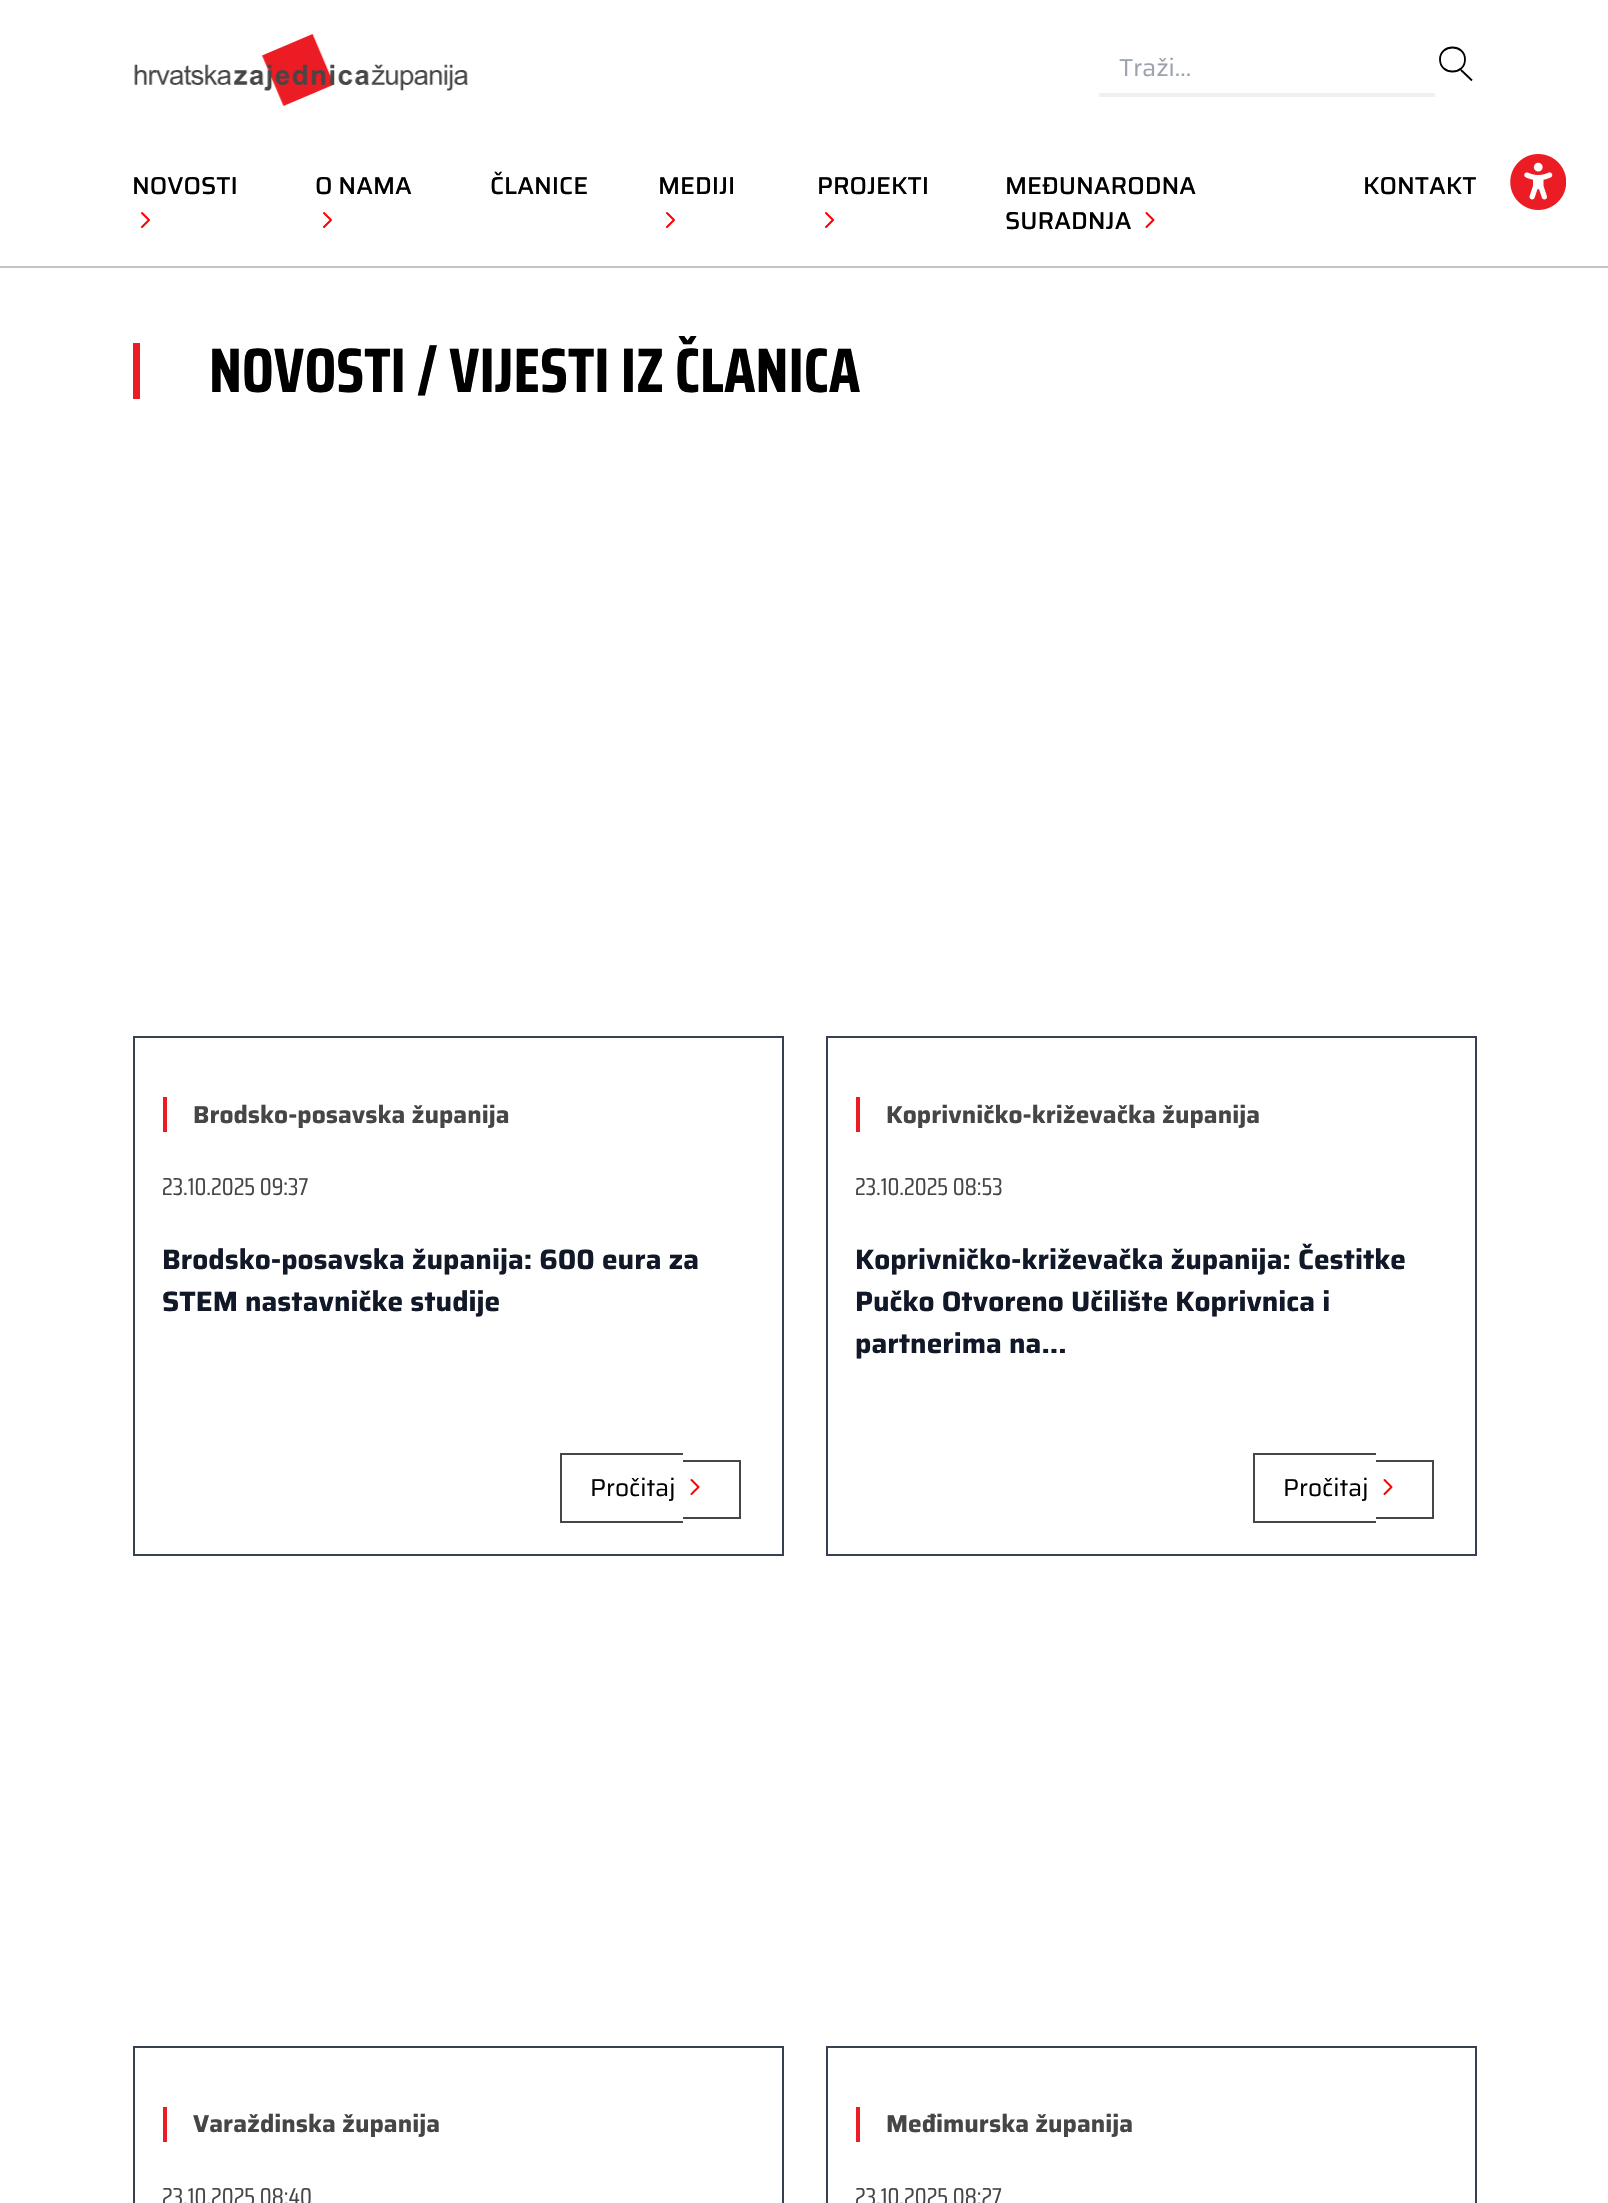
#include "include/core/SkBlurTypes.h"
#include "include/core/SkCanvas.h"
#include "include/core/SkData.h"
#include "include/core/SkFont.h"
#include "include/core/SkFontMgr.h"
#include "include/core/SkImage.h"
#include "include/core/SkMaskFilter.h"
#include "include/core/SkPaint.h"
#include "include/core/SkPathBuilder.h"
#include "include/core/SkTextBlob.h"
#include "include/effects/SkDashPathEffect.h"
#include "include/effects/SkGradientShader.h"
#include "include/utils/SkParsePath.h"

extern sk_sp<SkFontMgr> fontMgr;

void draw(SkCanvas* canvas) {
  SkPaint p;
  p.setAntiAlias(true);
  canvas->clear(SK_ColorWHITE);
  p.setColor(SkColorSetRGB(196, 196, 196));
  canvas->drawRect(SkRect::MakeLTRB(0, 266, 1608, 268), p);
  canvas->drawImageRect(SkImages::DeferredFromEncodedData(SkData::MakeFromFileName("images/1.png")), SkRect::MakeLTRB(134, 34, 469, 106), SkSamplingOptions());
  p.setColor(SkColorSetRGB(240, 240, 240));
  canvas->drawRect(SkRect::MakeLTRB(1099, 93, 1435, 97), p);
  p.setStyle(SkPaint::kStroke_Style);
  p.setStrokeWidth(1.8f);
  p.setColor(SK_ColorBLACK);
  canvas->drawPath(SkPathBuilder().moveTo(1472, 80.5f).lineTo(1461, 70).moveTo(1465, 59.5f).cubicTo(1465, 75.5f, 1440, 75.5f, 1440, 59.5f).cubicTo(1440, 43.5f, 1465, 43.5f, 1465, 59.5f).close().detach(), p);
  p.setStrokeWidth(2);
  p.setStrokeCap(SkPaint::kRound_Cap);
  p.setStrokeJoin(SkPaint::kRound_Join);
  p.setColor(SkColorSetRGB(255, 0, 0));
  canvas->drawPath(SkPathBuilder().moveTo(142, 213).lineTo(149, 220).lineTo(142, 227).detach(), p);
  canvas->drawPath(SkPathBuilder().moveTo(324, 213).lineTo(331, 220).lineTo(324, 227).detach(), p);
  canvas->drawPath(SkPathBuilder().moveTo(667, 213).lineTo(674, 220).lineTo(667, 227).detach(), p);
  canvas->drawPath(SkPathBuilder().moveTo(826, 213).lineTo(833, 220).lineTo(826, 227).detach(), p);
  canvas->drawPath(SkPathBuilder().moveTo(1146.5f, 213).lineTo(1153.5f, 220).lineTo(1146.5f, 227).detach(), p);
  canvas->drawImageRect(SkImages::DeferredFromEncodedData(SkData::MakeFromFileName("images/2.png")), SkRect::MakeLTRB(1510, 154, 1566, 210), SkSamplingOptions());
  p.setStyle(SkPaint::kFill_Style);
  p.setColor(SkColorSetRGB(236, 28, 36));
  canvas->drawRect(SkRect::MakeLTRB(133, 343, 140, 399), p);
  p.setStyle(SkPaint::kStroke_Style);
  p.setStrokeCap(SkPaint::kButt_Cap);
  p.setStrokeJoin(SkPaint::kMiter_Join);
  p.setColor(SkColorSetRGB(55, 65, 81));
  canvas->drawRect(SkRect::MakeLTRB(134, 1037, 783, 1555), p);
  p.setStyle(SkPaint::kFill_Style);
  p.setColor(SkColorSetRGB(236, 28, 36));
  canvas->drawRect(SkRect::MakeLTRB(163, 1097, 167, 1132), p);
  p.setColor(SkColorSetRGB(70, 70, 70));
  canvas->drawRect(SkRect::MakeLTRB(560, 1453, 683, 1455), p);
  canvas->drawRect(SkRect::MakeLTRB(560, 1521, 683, 1523), p);
  canvas->drawRect(SkRect::MakeLTRB(560, 1453, 562, 1523), p);
  canvas->drawRect(SkRect::MakeLTRB(683, 1460, 740, 1462), p);
  canvas->drawRect(SkRect::MakeLTRB(739, 1460, 741, 1519), p);
  canvas->drawRect(SkRect::MakeLTRB(683, 1517, 740, 1519), p);
  p.setStyle(SkPaint::kStroke_Style);
  p.setStrokeCap(SkPaint::kRound_Cap);
  p.setStrokeJoin(SkPaint::kRound_Join);
  p.setColor(SkColorSetRGB(255, 0, 0));
  canvas->drawPath(SkPathBuilder().moveTo(691.5f, 1480).lineTo(698.5f, 1487).lineTo(691.5f, 1494).detach(), p);
  p.setStrokeCap(SkPaint::kButt_Cap);
  p.setStrokeJoin(SkPaint::kMiter_Join);
  p.setColor(SkColorSetRGB(55, 65, 81));
  canvas->drawRect(SkRect::MakeLTRB(827, 1037, 1476, 1555), p);
  p.setStyle(SkPaint::kFill_Style);
  p.setColor(SkColorSetRGB(236, 28, 36));
  canvas->drawRect(SkRect::MakeLTRB(856, 1097, 860, 1132), p);
  p.setColor(SkColorSetRGB(70, 70, 70));
  canvas->drawRect(SkRect::MakeLTRB(1253, 1453, 1376, 1455), p);
  canvas->drawRect(SkRect::MakeLTRB(1253, 1521, 1376, 1523), p);
  canvas->drawRect(SkRect::MakeLTRB(1253, 1453, 1255, 1523), p);
  canvas->drawRect(SkRect::MakeLTRB(1376, 1460, 1433, 1462), p);
  canvas->drawRect(SkRect::MakeLTRB(1432, 1460, 1434, 1519), p);
  canvas->drawRect(SkRect::MakeLTRB(1376, 1517, 1433, 1519), p);
  p.setStyle(SkPaint::kStroke_Style);
  p.setStrokeCap(SkPaint::kRound_Cap);
  p.setStrokeJoin(SkPaint::kRound_Join);
  p.setColor(SkColorSetRGB(255, 0, 0));
  canvas->drawPath(SkPathBuilder().moveTo(1384.5f, 1480).lineTo(1391.5f, 1487).lineTo(1384.5f, 1494).detach(), p);
  p.setStrokeCap(SkPaint::kButt_Cap);
  p.setStrokeJoin(SkPaint::kMiter_Join);
  p.setColor(SkColorSetRGB(55, 65, 81));
  canvas->drawRect(SkRect::MakeLTRB(134, 2047, 783, 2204), p);
  p.setStyle(SkPaint::kFill_Style);
  p.setColor(SkColorSetRGB(236, 28, 36));
  canvas->drawRect(SkRect::MakeLTRB(163, 2107, 167, 2142), p);
  p.setStyle(SkPaint::kStroke_Style);
  p.setColor(SkColorSetRGB(55, 65, 81));
  canvas->drawRect(SkRect::MakeLTRB(827, 2047, 1476, 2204), p);
  p.setStyle(SkPaint::kFill_Style);
  p.setColor(SkColorSetRGB(236, 28, 36));
  canvas->drawRect(SkRect::MakeLTRB(856, 2107, 860, 2142), p);
  SkFont font1(fontMgr->matchFamilyStyle("Saira", SkFontStyle::Normal()), 24.5f);
  font1.setSubpixel(true);
  p.setColor(SkColorSetRGB(156, 163, 175));
  canvas->drawString("Traži...", 1119, 76, font1, p);
  SkFont font2(fontMgr->matchFamilyStyle("Saira", SkFontStyle(500, SkFontStyle::kNormal_Width, SkFontStyle::kUpright_Slant)), 24.5f);
  font2.setSubpixel(true);
  p.setColor(SK_ColorBLACK);
  canvas->drawString("NOVOSTI", 132, 194, font2, p);
  canvas->drawString("O NAMA", 315, 194, font2, p);
  canvas->drawString("ČLANICE", 490, 194, font2, p);
  canvas->drawString("MEDIJI", 658, 194, font2, p);
  canvas->drawString("PROJEKTI", 817, 194, font2, p);
  canvas->drawString("MEĐUNARODNA", 1005, 194, font2, p);
  canvas->drawString("SURADNJA", 1005, 229, font2, p);
  canvas->drawString("KONTAKT", 1363, 194, font2, p);
  SkFont font3(fontMgr->matchFamilyStyle("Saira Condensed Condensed", SkFontStyle::Bold()), 63);
  font3.setSubpixel(true);
  canvas->drawString("NOVOSTI / VIJESTI IZ ČLANICA", 209, 392, font3, p);
  SkFont font4(fontMgr->matchFamilyStyle("Saira", SkFontStyle::Bold()), 24.5f);
  font4.setSubpixel(true);
  p.setColor(SkColorSetRGB(70, 70, 70));
  canvas->drawString("Brodsko-posavska županija", 193, 1123, font4, p);
  SkFont font5(fontMgr->matchFamilyStyle("Saira Condensed", SkFontStyle::Normal()), 24.5f);
  font5.setSubpixel(true);
  canvas->drawString("23.10.2025 09:37", 162, 1195, font5, p);
  SkFont font6(fontMgr->matchFamilyStyle("Saira", SkFontStyle::Bold()), 28);
  font6.setSubpixel(true);
  p.setColor(SkColorSetRGB(17, 24, 39));
  canvas->drawString("Brodsko-posavska županija: 600 eura za", 162, 1269, font6, p);
  canvas->drawString("STEM nastavničke studije", 162, 1311, font6, p);
  p.setColor(SK_ColorBLACK);
  canvas->drawString("Pročitaj", 590, 1496, font1, p);
  p.setColor(SkColorSetRGB(70, 70, 70));
  canvas->drawString("Koprivničko-križevačka županija", 886, 1123, font4, p);
  canvas->drawString("23.10.2025 08:53", 855, 1195, font5, p);
  p.setColor(SkColorSetRGB(17, 24, 39));
  canvas->drawString("Koprivničko-križevačka županija: Čestitke", 855, 1269, font6, p);
  canvas->drawString("Pučko Otvoreno Učilište Koprivnica i", 855, 1311, font6, p);
  canvas->drawString("partnerima na...", 855, 1353, font6, p);
  p.setColor(SK_ColorBLACK);
  canvas->drawString("Pročitaj", 1283, 1496, font1, p);
  p.setColor(SkColorSetRGB(70, 70, 70));
  canvas->drawString("Varaždinska županija", 193, 2132, font4, p);
  canvas->drawString("23.10.2025 08:40", 162, 2205, font5, p);
  canvas->drawString("Međimurska županija", 886, 2132, font4, p);
  canvas->drawString("23.10.2025 08:27", 855, 2205, font5, p);
}
